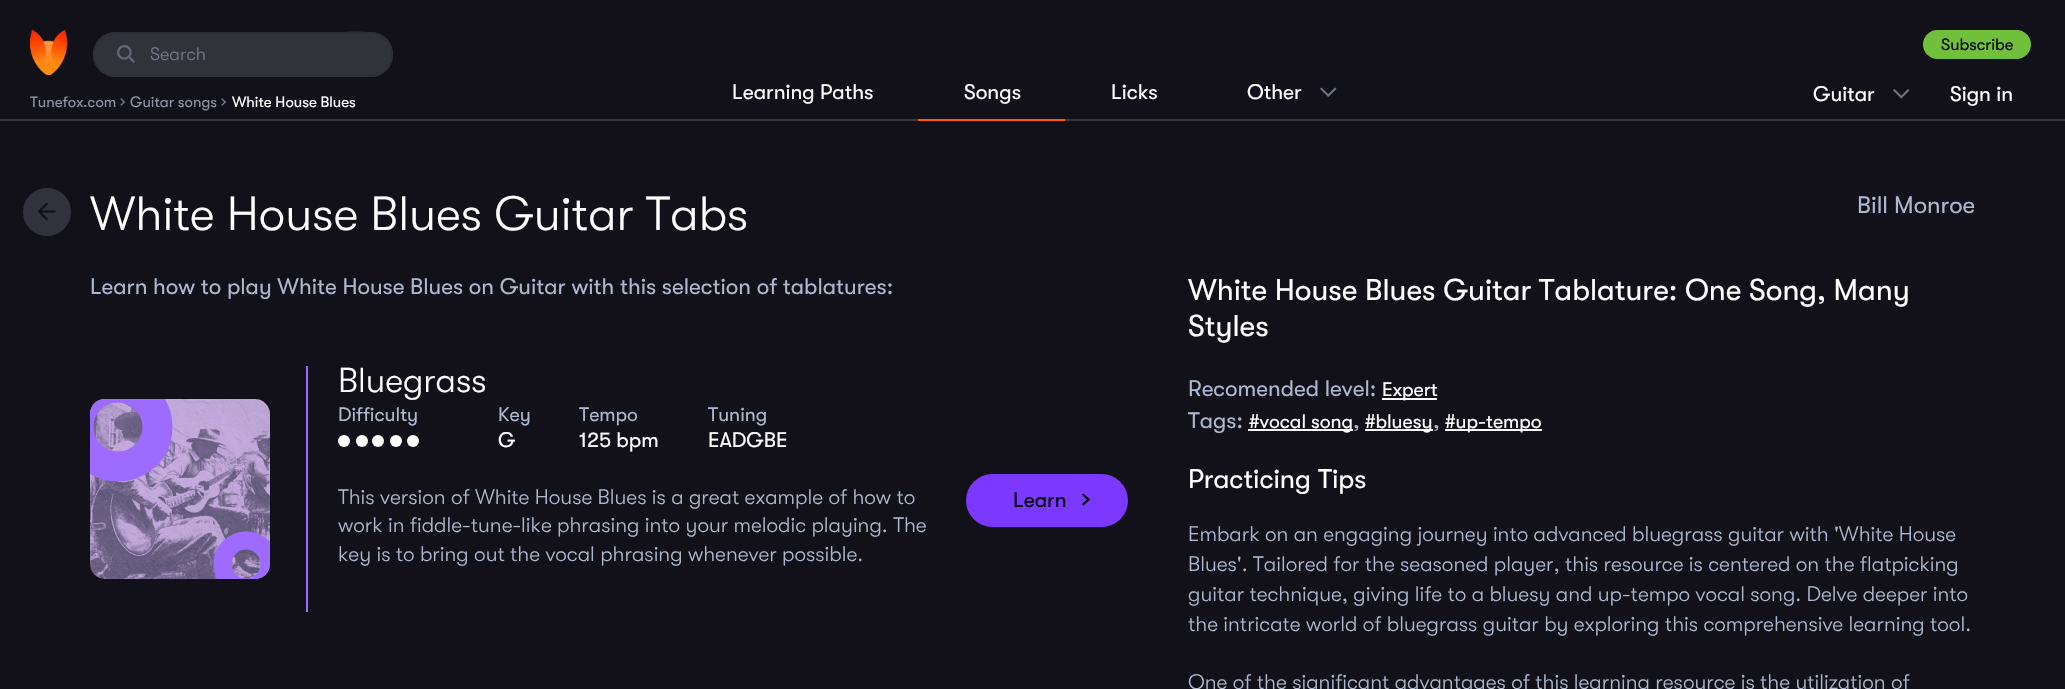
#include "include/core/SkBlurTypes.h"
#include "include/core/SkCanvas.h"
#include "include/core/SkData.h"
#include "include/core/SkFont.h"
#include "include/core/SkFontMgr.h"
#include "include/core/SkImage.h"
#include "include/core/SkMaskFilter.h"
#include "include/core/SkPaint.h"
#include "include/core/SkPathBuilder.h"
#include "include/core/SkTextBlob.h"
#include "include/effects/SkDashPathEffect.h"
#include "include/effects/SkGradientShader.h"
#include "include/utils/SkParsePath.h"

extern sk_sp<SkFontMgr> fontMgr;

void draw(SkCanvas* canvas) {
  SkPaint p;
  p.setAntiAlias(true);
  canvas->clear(SkColorSetRGB(18, 17, 26));
  p.setColor(SkColorSetRGB(54, 56, 64));
  canvas->drawRect(SkRect::MakeLTRB(0, 119, 2065, 121), p);
  canvas->drawImageRect(SkImages::DeferredFromEncodedData(SkData::MakeFromFileName("images/1.png")), SkRect::MakeLTRB(30, 30, 68, 75), SkSamplingOptions());
  p.setColor(SkColorSetRGB(49, 51, 59));
  canvas->drawRoundRect(SkRect::MakeLTRB(93, 32, 393, 77), 22.5f, 22.5f, p);
  p.setColor(SkColorSetRGB(45, 47, 55));
  canvas->drawPath(SkPathBuilder().moveTo(116, 34).lineTo(370, 34).cubicTo(382, 34, 391, 43, 392, 55).cubicTo(393, 23, 343, 33, 328, 33).lineTo(116, 33).cubicTo(108, 33, 101, 38, 97, 45).cubicTo(101, 38, 108, 34, 116, 34).close().detach(), p);
  p.setStyle(SkPaint::kStroke_Style);
  p.setStrokeWidth(2);
  p.setColor(SkColorSetRGB(44, 46, 58));
  canvas->drawRoundRect(SkRect::MakeLTRB(94, 33, 392, 76), 21.5f, 21.5f, p);
  canvas->drawImageRect(SkImages::DeferredFromEncodedData(SkData::MakeFromFileName("images/2.png")), SkRect::MakeLTRB(117, 45, 135, 63), SkSamplingOptions());
  p.setStyle(SkPaint::kFill_Style);
  p.setColor(SkColorSetRGB(254, 91, 6));
  canvas->drawRect(SkRect::MakeLTRB(918, 119, 1065, 121), p);
  canvas->drawImageRect(SkImages::DeferredFromEncodedData(SkData::MakeFromFileName("images/3.png")), SkRect::MakeLTRB(1320, 87, 1337, 97), SkSamplingOptions());
  canvas->drawImageRect(SkImages::DeferredFromEncodedData(SkData::MakeFromFileName("images/4.png")), SkRect::MakeLTRB(1893, 89, 1910, 99), SkSamplingOptions());
  p.setColor(SkColorSetRGB(113, 192, 60));
  canvas->drawRoundRect(SkRect::MakeLTRB(1923, 30, 2031, 59), 14.5f, 14.5f, p);
  p.setColor(SkColorSetRGB(49, 50, 61));
  canvas->drawCircle(47, 212, 24, p);
  canvas->drawImageRect(SkImages::DeferredFromEncodedData(SkData::MakeFromFileName("images/5.png")), SkRect::MakeLTRB(38, 203, 56, 221), SkSamplingOptions());
  p.setColor(SkColorSetRGB(157, 107, 255));
  canvas->drawRect(SkRect::MakeLTRB(306, 366, 308, 612), p);
  canvas->drawImageRect(SkImages::DeferredFromEncodedData(SkData::MakeFromFileName("images/6.png")), SkRect::MakeLTRB(90, 399, 270, 579), SkSamplingOptions());
  canvas->save();
  canvas->clipPath(SkPathBuilder().moveTo(105, 399).lineTo(255, 399).cubicTo(263.5f, 399, 270, 405.5f, 270, 414).lineTo(270, 564).cubicTo(270, 572.5f, 263.5f, 579, 255, 579).lineTo(105, 579).cubicTo(96.5f, 579, 90, 572.5f, 90, 564).lineTo(90, 414).cubicTo(90, 405.5f, 96.5f, 399, 105, 399).close().detach(), true);
  p.setStyle(SkPaint::kStroke_Style);
  p.setStrokeWidth(30);
  canvas->drawCircle(118, 427, 39.5f, p);
  p.setStrokeWidth(18);
  canvas->drawCircle(246, 564, 23.5f, p);
  canvas->restore();
  p.setStyle(SkPaint::kFill_Style);
  p.setColor(SK_ColorWHITE);
  canvas->drawCircle(344, 441, 6, p);
  canvas->drawCircle(362, 441, 6, p);
  canvas->drawCircle(378, 441, 6, p);
  canvas->drawCircle(396, 441, 6, p);
  canvas->drawCircle(413, 441, 6, p);
  p.setColor(SkColorSetRGB(123, 56, 255));
  canvas->drawRoundRect(SkRect::MakeLTRB(966, 474, 1128, 527), 26.5f, 26.5f, p);
  canvas->drawImageRect(SkImages::DeferredFromEncodedData(SkData::MakeFromFileName("images/7.png")), SkRect::MakeLTRB(1082, 494, 1090, 506), SkSamplingOptions());
  p.setColor(SK_ColorWHITE);
  canvas->drawRect(SkRect::MakeLTRB(1382, 398, 1437, 400), p);
  canvas->drawRect(SkRect::MakeLTRB(1248, 429, 1353, 431), p);
  canvas->drawRect(SkRect::MakeLTRB(1365, 429, 1433, 431), p);
  canvas->drawRect(SkRect::MakeLTRB(1445, 429, 1542, 431), p);
  SkFont font1(fontMgr->matchFamilyStyle("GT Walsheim", SkFontStyle(300, SkFontStyle::kNormal_Width, SkFontStyle::kUpright_Slant)), 18);
  font1.setSubpixel(true);
  p.setColor(SkColorSetRGB(116, 120, 136));
  canvas->drawString("Search", 150, 60, font1, p);
  SkFont font2(fontMgr->matchFamilyStyle("GT Walsheim", SkFontStyle::Normal()), 15);
  font2.setSubpixel(true);
  p.setColor(SkColorSetRGB(142, 146, 161));
  canvas->drawString("Tunefox.com", 30, 107, font2, p);
  SkFont font3(fontMgr->matchFamilyStyle("GT Walsheim", SkFontStyle::Normal()), 19.5f);
  font3.setSubpixel(true);
  p.setColor(SkColorSetRGB(107, 115, 132));
  canvas->drawString("›", 120, 107, font3, p);
  p.setColor(SkColorSetRGB(142, 146, 161));
  canvas->drawString("Guitar songs", 130, 107, font2, p);
  p.setColor(SkColorSetRGB(107, 115, 132));
  canvas->drawString("›", 221, 107, font3, p);
  p.setColor(SK_ColorWHITE);
  canvas->drawString("White House Blues", 232, 107, font2, p);
  SkFont font4(fontMgr->matchFamilyStyle("GT Walsheim", SkFontStyle::Normal()), 21);
  font4.setSubpixel(true);
  canvas->drawString("Learning Paths", 732, 99, font4, p);
  canvas->drawString("Songs", 964, 99, font4, p);
  canvas->drawString("Licks", 1111, 99, font4, p);
  canvas->drawString("Other", 1247, 99, font4, p);
  canvas->drawString("Guitar", 1813, 101, font4, p);
  SkFont font5(fontMgr->matchFamilyStyle("GT Walsheim", SkFontStyle::Normal()), 16.5f);
  font5.setSubpixel(true);
  p.setColor(SK_ColorBLACK);
  canvas->drawString("Subscribe", 1941, 50, font5, p);
  p.setColor(SK_ColorWHITE);
  canvas->drawString("Sign in", 1950, 101, font4, p);
  SkFont font6(fontMgr->matchFamilyStyle("GT Walsheim", SkFontStyle(300, SkFontStyle::kNormal_Width, SkFontStyle::kUpright_Slant)), 48);
  font6.setSubpixel(true);
  canvas->drawString("White House Blues Guitar Tabs", 90, 230, font6, p);
  SkFont font7(fontMgr->matchFamilyStyle("GT Walsheim", SkFontStyle::Normal()), 24);
  font7.setSubpixel(true);
  p.setColor(SkColorSetRGB(173, 183, 206));
  canvas->drawString("Bill Monroe", 1857, 213, font7, p);
  SkFont font8(fontMgr->matchFamilyStyle("GT Walsheim", SkFontStyle::Normal()), 22.5f);
  font8.setSubpixel(true);
  canvas->drawString("Learn how to play White House Blues on Guitar with this selection of tablatures:", 90, 294, font8, p);
  SkFont font9(fontMgr->matchFamilyStyle("GT Walsheim", SkFontStyle(300, SkFontStyle::kNormal_Width, SkFontStyle::kUpright_Slant)), 34.5f);
  font9.setSubpixel(true);
  p.setColor(SK_ColorWHITE);
  canvas->drawString("Bluegrass", 338, 392, font9, p);
  p.setColor(SkColorSetRGB(173, 183, 206));
  canvas->drawString("Difficulty", 338, 421, font3, p);
  canvas->drawString("Key", 498, 421, font3, p);
  p.setColor(SK_ColorWHITE);
  canvas->drawString("G", 498, 447, font4, p);
  p.setColor(SkColorSetRGB(173, 183, 206));
  canvas->drawString("Tempo", 579, 421, font3, p);
  p.setColor(SK_ColorWHITE);
  canvas->drawString("125 bpm", 579, 447, font4, p);
  p.setColor(SkColorSetRGB(173, 183, 206));
  canvas->drawString("Tuning", 708, 421, font3, p);
  p.setColor(SK_ColorWHITE);
  canvas->drawString("EADGBE", 708, 447, font4, p);
  SkFont font10(fontMgr->matchFamilyStyle("GT Walsheim", SkFontStyle(300, SkFontStyle::kNormal_Width, SkFontStyle::kUpright_Slant)), 21);
  font10.setSubpixel(true);
  p.setColor(SkColorSetRGB(173, 183, 206));
  canvas->drawString("This version of White House Blues is a great example of how to", 338, 504, font10, p);
  canvas->drawString("work in fiddle-tune-like phrasing into your melodic playing. The", 338, 532, font10, p);
  canvas->drawString("key is to bring out the vocal phrasing whenever possible.", 338, 561, font10, p);
  p.setColor(SK_ColorBLACK);
  canvas->drawString("Learn", 1013, 507, font4, p);
  SkFont font11(fontMgr->matchFamilyStyle("GT Walsheim", SkFontStyle::Normal()), 30);
  font11.setSubpixel(true);
  p.setColor(SK_ColorWHITE);
  canvas->drawString("White House Blues Guitar Tablature: One Song, Many", 1188, 300, font11, p);
  canvas->drawString("Styles", 1188, 336, font11, p);
  p.setColor(SkColorSetRGB(173, 183, 206));
  canvas->drawString("Recomended level:", 1188, 396, font8, p);
  p.setColor(SK_ColorWHITE);
  canvas->drawString("Expert", 1382, 396, font3, p);
  p.setColor(SkColorSetRGB(173, 183, 206));
  canvas->drawString("Tags:", 1188, 428, font8, p);
  p.setColor(SK_ColorWHITE);
  canvas->drawString("#vocal song", 1249, 428, font3, p);
  p.setColor(SkColorSetRGB(173, 183, 206));
  canvas->drawString(",", 1353, 428, font8, p);
  p.setColor(SK_ColorWHITE);
  canvas->drawString("#bluesy", 1365, 428, font3, p);
  p.setColor(SkColorSetRGB(173, 183, 206));
  canvas->drawString(",", 1433, 428, font8, p);
  p.setColor(SK_ColorWHITE);
  canvas->drawString("#up-tempo", 1445, 428, font3, p);
  SkFont font12(fontMgr->matchFamilyStyle("GT Walsheim", SkFontStyle::Normal()), 27);
  font12.setSubpixel(true);
  canvas->drawString("Practicing Tips", 1188, 488, font12, p);
  p.setColor(SkColorSetRGB(173, 183, 206));
  canvas->drawString("Embark on an engaging journey into advanced bluegrass guitar with 'White House", 1188, 541, font10, p);
  canvas->drawString("Blues'. Tailored for the seasoned player, this resource is centered on the flatpicking", 1188, 571, font10, p);
  canvas->drawString("guitar technique, giving life to a bluesy and up-tempo vocal song. Delve deeper into", 1188, 601, font10, p);
  canvas->drawString("the intricate world of bluegrass guitar by exploring this comprehensive learning tool.", 1188, 631, font10, p);
  canvas->drawString("One of the significant advantages of this learning resource is the utilization of", 1188, 689, font10, p);
}
